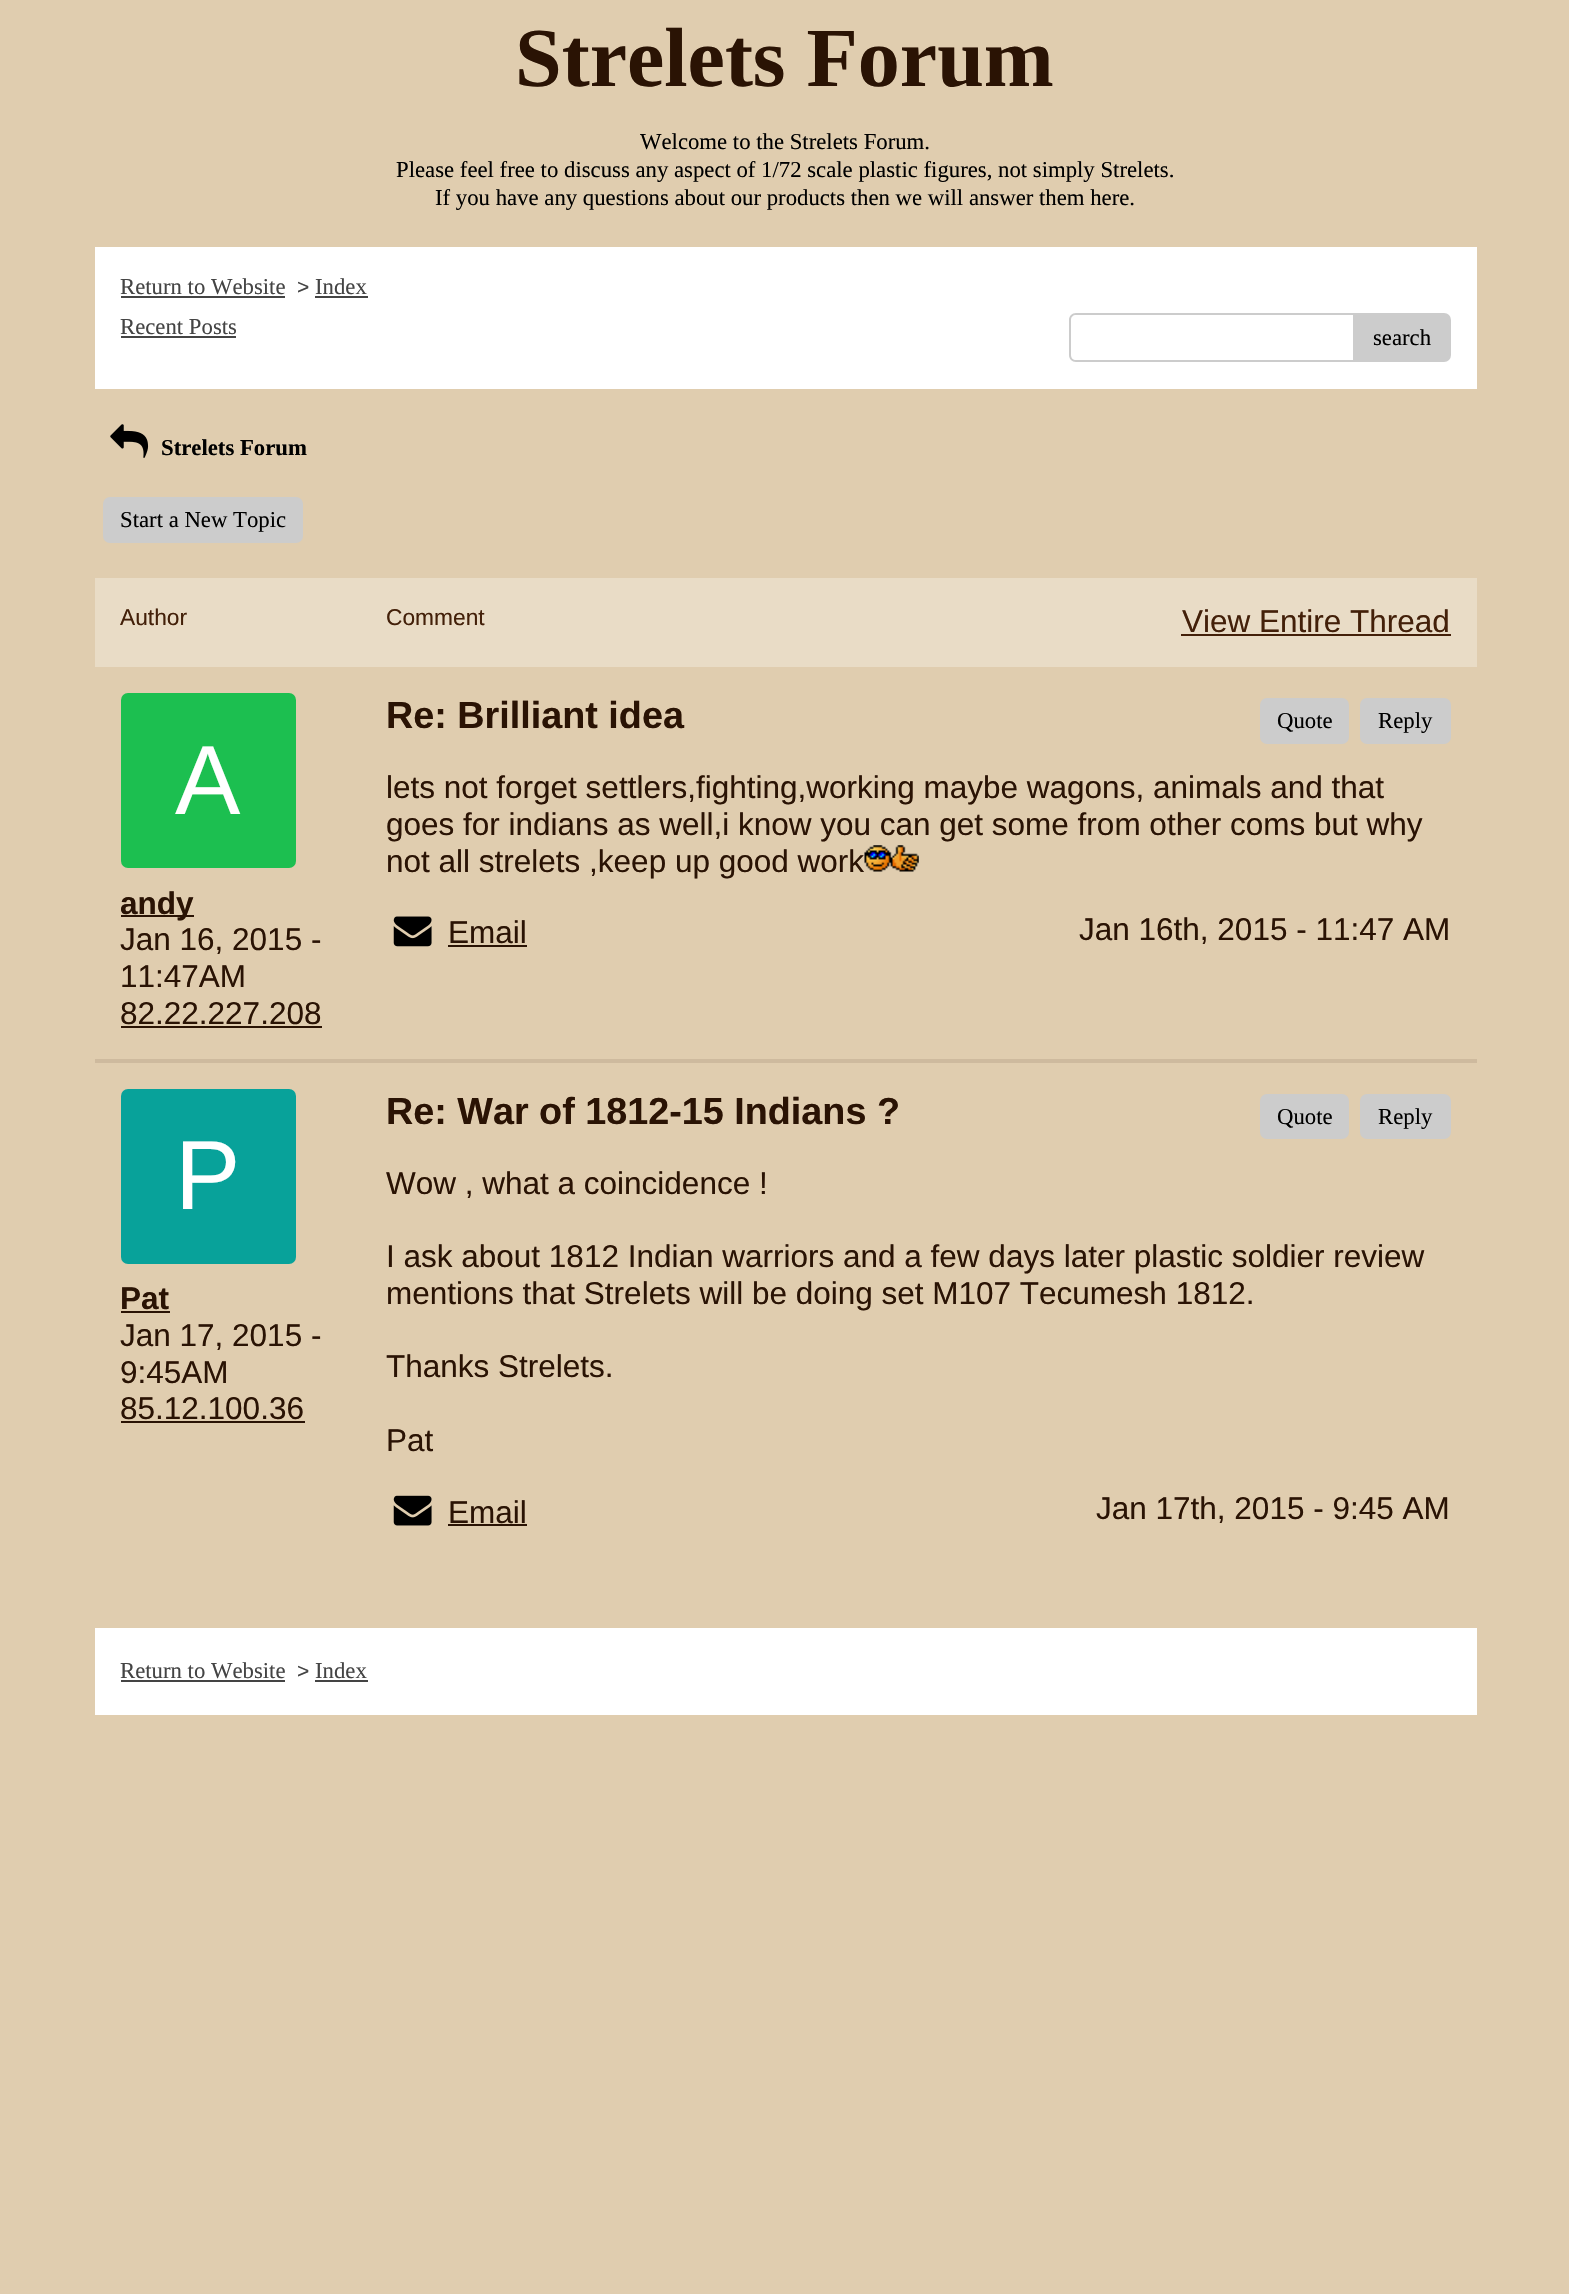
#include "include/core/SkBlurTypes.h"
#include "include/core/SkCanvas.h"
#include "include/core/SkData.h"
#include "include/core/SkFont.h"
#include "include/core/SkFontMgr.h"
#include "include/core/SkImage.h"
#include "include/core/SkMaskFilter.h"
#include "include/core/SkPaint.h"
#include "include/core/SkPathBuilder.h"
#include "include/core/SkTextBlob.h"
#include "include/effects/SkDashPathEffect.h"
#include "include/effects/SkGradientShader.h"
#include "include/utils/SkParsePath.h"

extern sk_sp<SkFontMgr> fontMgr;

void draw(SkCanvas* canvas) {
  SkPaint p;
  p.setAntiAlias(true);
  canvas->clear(SkColorSetRGB(224, 205, 175));
  p.setColor(SK_ColorWHITE);
  canvas->drawRect(SkRect::MakeLTRB(95, 247, 1477, 389), p);
  p.setColor(SkColorSetRGB(68, 68, 68));
  canvas->drawRect(SkRect::MakeLTRB(121, 296, 285, 298), p);
  canvas->drawRect(SkRect::MakeLTRB(315, 296, 368, 298), p);
  canvas->drawRect(SkRect::MakeLTRB(121, 336, 236, 338), p);
  p.setColor(SkColorSetRGB(204, 204, 204));
  canvas->drawPath(SkPathBuilder(SkPathFillType::kEvenOdd).moveTo(1076, 313).lineTo(1426, 313).cubicTo(1430, 313, 1433, 316, 1433, 320).lineTo(1433, 355).cubicTo(1433, 359, 1430, 362, 1426, 362).lineTo(1076, 362).cubicTo(1072, 362, 1069, 359, 1069, 355).lineTo(1069, 320).cubicTo(1069, 316, 1072, 313, 1076, 313).close().moveTo(1076, 315).lineTo(1426, 315).cubicTo(1430, 315, 1433, 317, 1433, 320).lineTo(1433, 355).cubicTo(1433, 358, 1430, 360, 1426, 360).lineTo(1076, 360).cubicTo(1073, 360, 1071, 358, 1071, 355).lineTo(1071, 320).cubicTo(1071, 317, 1073, 315, 1076, 315).close().detach(), p);
  canvas->drawPath(SkPathBuilder().moveTo(1354, 314).lineTo(1444, 314).cubicTo(1447.5f, 314, 1450, 316.5f, 1450, 320).lineTo(1450, 355).cubicTo(1450, 358.5f, 1447.5f, 361, 1444, 361).lineTo(1354, 361).close().detach(), p);
  p.setStyle(SkPaint::kStroke_Style);
  p.setStrokeWidth(2);
  canvas->drawPath(SkPathBuilder().moveTo(1354, 314).lineTo(1444, 314).cubicTo(1447.5f, 314, 1450, 316.5f, 1450, 320).lineTo(1450, 355).cubicTo(1450, 358.5f, 1447.5f, 361, 1444, 361).lineTo(1354, 361).close().detach(), p);
  canvas->drawImageRect(SkImages::DeferredFromEncodedData(SkData::MakeFromFileName("images/1.png")), SkRect::MakeLTRB(110, 424, 149, 458), SkSamplingOptions());
  p.setStyle(SkPaint::kFill_Style);
  canvas->drawRoundRect(SkRect::MakeLTRB(103, 497, 303, 543), 7, 7, p);
  p.setColor(SkColorSetRGB(233, 220, 198));
  canvas->drawRect(SkRect::MakeLTRB(95, 578, 1477, 667), p);
  p.setColor(SkColorSetRGB(67, 32, 9));
  canvas->drawRect(SkRect::MakeLTRB(1181, 634, 1451, 636), p);
  p.setColor(SkColorSetRGB(206, 186, 158));
  canvas->drawRect(SkRect::MakeLTRB(95, 1059, 1477, 1063), p);
  p.setColor(SkColorSetRGB(28, 191, 80));
  canvas->drawRoundRect(SkRect::MakeLTRB(121, 693, 296, 868), 7, 7, p);
  p.setColor(SkColorSetRGB(42, 19, 4));
  canvas->drawRect(SkRect::MakeLTRB(121, 915, 194, 917), p);
  canvas->drawRect(SkRect::MakeLTRB(121, 1026, 322, 1028), p);
  p.setColor(SkColorSetRGB(204, 204, 204));
  canvas->drawRoundRect(SkRect::MakeLTRB(1260, 698, 1349, 744), 7, 7, p);
  canvas->drawRoundRect(SkRect::MakeLTRB(1360, 698, 1451, 744), 7, 7, p);
  canvas->drawImageRect(SkImages::DeferredFromEncodedData(SkData::MakeFromFileName("images/2.png")), SkRect::MakeLTRB(864, 845, 919, 872), SkSamplingOptions());
  canvas->drawImageRect(SkImages::DeferredFromEncodedData(SkData::MakeFromFileName("images/3.png")), SkRect::MakeLTRB(393, 916, 432, 947), SkSamplingOptions());
  p.setColor(SkColorSetRGB(42, 19, 4));
  canvas->drawRect(SkRect::MakeLTRB(448, 945, 527, 947), p);
  p.setColor(SkColorSetRGB(8, 162, 154));
  canvas->drawRoundRect(SkRect::MakeLTRB(121, 1089, 296, 1264), 7, 7, p);
  p.setColor(SkColorSetRGB(42, 19, 4));
  canvas->drawRect(SkRect::MakeLTRB(121, 1311, 170, 1313), p);
  canvas->drawRect(SkRect::MakeLTRB(121, 1421, 305, 1423), p);
  p.setColor(SkColorSetRGB(204, 204, 204));
  canvas->drawRoundRect(SkRect::MakeLTRB(1260, 1094, 1349, 1139), 7, 7, p);
  canvas->drawRoundRect(SkRect::MakeLTRB(1360, 1094, 1451, 1139), 7, 7, p);
  canvas->drawImageRect(SkImages::DeferredFromEncodedData(SkData::MakeFromFileName("images/4.png")), SkRect::MakeLTRB(393, 1495, 432, 1526), SkSamplingOptions());
  p.setColor(SkColorSetRGB(42, 19, 4));
  canvas->drawRect(SkRect::MakeLTRB(448, 1524, 527, 1526), p);
  p.setColor(SK_ColorWHITE);
  canvas->drawRect(SkRect::MakeLTRB(95, 1628, 1477, 1715), p);
  p.setColor(SkColorSetRGB(68, 68, 68));
  canvas->drawRect(SkRect::MakeLTRB(121, 1680, 285, 1682), p);
  canvas->drawRect(SkRect::MakeLTRB(315, 1680, 368, 1682), p);
  SkFont font1(fontMgr->matchFamilyStyle("Liberation Serif", SkFontStyle::Bold()), 84);
  font1.setSubpixel(true);
  p.setColor(SkColorSetRGB(42, 19, 4));
  canvas->drawString("Strelets Forum", 515, 86, font1, p);
  SkFont font2(fontMgr->matchFamilyStyle("Liberation Serif", SkFontStyle::Normal()), 22.75f);
  font2.setSubpixel(true);
  p.setColor(SK_ColorBLACK);
  canvas->drawString("Welcome to the Strelets Forum.", 640, 149, font2, p);
  canvas->drawString("Please feel free to discuss any aspect of 1/72 scale plastic figures, not simply Strelets.", 396, 177, font2, p);
  canvas->drawString("If you have any questions about our products then we will answer them here.", 435, 205, font2, p);
  p.setColor(SkColorSetRGB(68, 68, 68));
  canvas->drawString("Return to Website", 120, 294, font2, p);
  SkFont font3(fontMgr->matchFamilyStyle("Liberation Sans", SkFontStyle::Normal()), 21);
  font3.setSubpixel(true);
  canvas->drawString(">", 297, 294, font3, p);
  canvas->drawString("Index", 315, 294, font2, p);
  canvas->drawString("Recent Posts", 120, 334, font2, p);
  p.setColor(SK_ColorBLACK);
  canvas->drawString("search", 1373, 345, font2, p);
  SkFont font4(fontMgr->matchFamilyStyle("Liberation Serif", SkFontStyle::Bold()), 22.75f);
  font4.setSubpixel(true);
  canvas->drawString("Strelets Forum", 161, 455, font4, p);
  canvas->drawString("Start a New Topic", 120, 527, font2, p);
  SkFont font5(fontMgr->matchFamilyStyle("Liberation Sans", SkFontStyle::Normal()), 22.75f);
  font5.setSubpixel(true);
  p.setColor(SkColorSetRGB(67, 32, 9));
  canvas->drawString("Author", 120, 625, font5, p);
  canvas->drawString("Comment", 386, 625, font5, p);
  SkFont font6(fontMgr->matchFamilyStyle("Liberation Sans", SkFontStyle::Normal()), 31.5f);
  font6.setSubpixel(true);
  canvas->drawString("View Entire Thread", 1182, 632, font6, p);
  SkFont font7(fontMgr->matchFamilyStyle("Liberation Sans", SkFontStyle::Normal()), 98);
  font7.setSubpixel(true);
  p.setColor(SK_ColorWHITE);
  canvas->drawString("A", 175, 814, font7, p);
  canvas->save();
  canvas->clipRect(SkRect::MakeLTRB(121, 886, 348, 922));
  SkFont font8(fontMgr->matchFamilyStyle("Liberation Sans", SkFontStyle::Bold()), 31.5f);
  font8.setSubpixel(true);
  p.setColor(SkColorSetRGB(42, 19, 4));
  canvas->drawString("andy", 120, 914, font8, p);
  canvas->restore();
  canvas->drawString("Jan 16, 2015 -", 120, 950, font6, p);
  canvas->drawString("11:47AM", 120, 987, font6, p);
  canvas->drawString("82.22.227.208", 120, 1024, font6, p);
  SkFont font9(fontMgr->matchFamilyStyle("Liberation Sans", SkFontStyle::Bold()), 37.75f);
  font9.setSubpixel(true);
  canvas->drawString("Re: Brilliant idea", 386, 728, font9, p);
  p.setColor(SK_ColorBLACK);
  canvas->drawString("Quote", 1277, 728, font2, p);
  canvas->drawString("Reply", 1378, 728, font2, p);
  p.setColor(SkColorSetRGB(42, 19, 4));
  canvas->drawString("lets not forget settlers,fighting,working maybe wagons, animals and that", 386, 798, font6, p);
  canvas->drawString("goes for indians as well,i know you can get some from other coms but why", 386, 835, font6, p);
  canvas->drawString("not all strelets ,keep up good work", 386, 872, font6, p);
  canvas->drawString("Email", 448, 943, font6, p);
  canvas->drawString("Jan 16th, 2015 - 11:47 AM", 1079, 940, font6, p);
  p.setColor(SK_ColorWHITE);
  canvas->drawString("P", 175, 1209, font7, p);
  p.setColor(SkColorSetRGB(42, 19, 4));
  canvas->drawString("Pat", 120, 1309, font8, p);
  canvas->drawString("Jan 17, 2015 -", 120, 1346, font6, p);
  canvas->drawString("9:45AM", 120, 1383, font6, p);
  canvas->drawString("85.12.100.36", 120, 1419, font6, p);
  canvas->drawString("Re: War of 1812-15 Indians ?", 386, 1124, font9, p);
  p.setColor(SK_ColorBLACK);
  canvas->drawString("Quote", 1277, 1124, font2, p);
  canvas->drawString("Reply", 1378, 1124, font2, p);
  p.setColor(SkColorSetRGB(42, 19, 4));
  canvas->drawString("Wow , what a coincidence !", 386, 1194, font6, p);
  canvas->drawString("I ask about 1812 Indian warriors and a few days later plastic soldier review", 386, 1267, font6, p);
  canvas->drawString("mentions that Strelets will be doing set M107 Tecumesh 1812.", 386, 1304, font6, p);
  canvas->drawString("Thanks Strelets.", 386, 1377, font6, p);
  canvas->drawString("Pat", 386, 1451, font6, p);
  canvas->drawString("Email", 448, 1523, font6, p);
  canvas->drawString("Jan 17th, 2015 - 9:45 AM", 1096, 1519, font6, p);
  p.setColor(SkColorSetRGB(68, 68, 68));
  canvas->drawString("Return to Website", 120, 1678, font2, p);
  canvas->drawString(">", 297, 1678, font3, p);
  canvas->drawString("Index", 315, 1678, font2, p);
}
